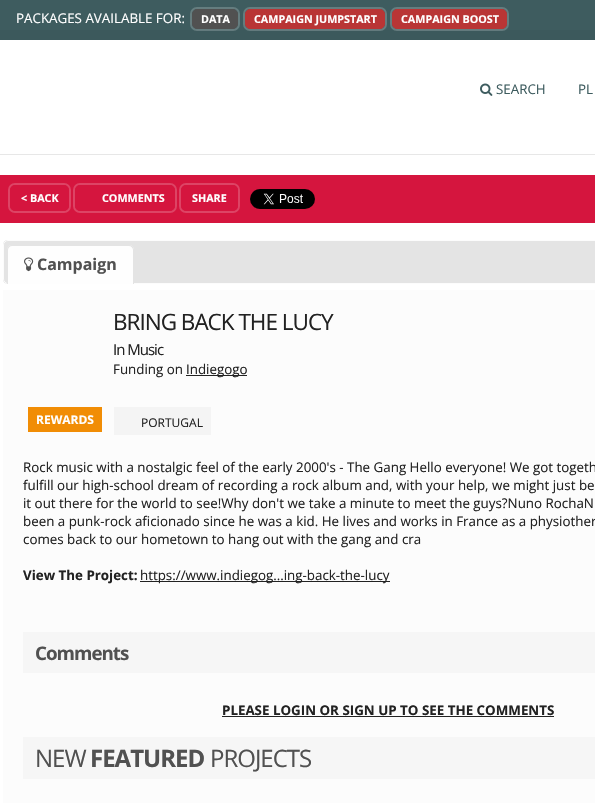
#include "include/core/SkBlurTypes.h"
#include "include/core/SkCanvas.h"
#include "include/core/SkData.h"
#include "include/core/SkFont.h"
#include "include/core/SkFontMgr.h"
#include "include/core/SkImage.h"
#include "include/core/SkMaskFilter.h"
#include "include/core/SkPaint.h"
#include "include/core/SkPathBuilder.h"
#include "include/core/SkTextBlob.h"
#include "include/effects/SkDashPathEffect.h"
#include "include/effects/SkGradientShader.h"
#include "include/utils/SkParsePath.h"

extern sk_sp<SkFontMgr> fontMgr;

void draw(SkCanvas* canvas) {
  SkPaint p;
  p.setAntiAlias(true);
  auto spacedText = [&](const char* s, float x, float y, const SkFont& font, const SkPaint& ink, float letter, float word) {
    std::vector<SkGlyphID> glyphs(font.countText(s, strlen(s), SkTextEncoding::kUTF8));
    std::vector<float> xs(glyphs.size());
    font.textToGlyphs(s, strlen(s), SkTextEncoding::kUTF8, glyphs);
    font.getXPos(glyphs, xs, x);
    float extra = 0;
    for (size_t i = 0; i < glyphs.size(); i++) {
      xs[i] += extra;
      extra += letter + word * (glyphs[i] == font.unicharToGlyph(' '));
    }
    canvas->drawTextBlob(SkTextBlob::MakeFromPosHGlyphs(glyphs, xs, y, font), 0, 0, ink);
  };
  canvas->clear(SkColorSetRGB(62, 92, 95));
  p.setColor(SkColorSetRGB(60, 89, 92));
  canvas->drawRect(SkRect::MakeLTRB(0, 30, 595, 40), p);
  p.setStyle(SkPaint::kStroke_Style);
  p.setStrokeWidth(2);
  p.setColor(SkColorSetARGB(51, 255, 255, 255));
  canvas->drawRoundRect(SkRect::MakeLTRB(191, 8, 239, 30), 6, 6, p);
  p.setStyle(SkPaint::kFill_Style);
  p.setColor(SkColorSetRGB(81, 81, 81));
  canvas->drawRoundRect(SkRect::MakeLTRB(192.5f, 9.5f, 237.5f, 28.5f), 4.5f, 4.5f, p);
  p.setStyle(SkPaint::kStroke_Style);
  p.setStrokeWidth(1);
  canvas->drawRoundRect(SkRect::MakeLTRB(192.5f, 9.5f, 237.5f, 28.5f), 4.5f, 4.5f, p);
  p.setStrokeWidth(2);
  p.setColor(SkColorSetARGB(51, 255, 255, 255));
  canvas->drawRoundRect(SkRect::MakeLTRB(244, 8, 386, 30), 6, 6, p);
  p.setStyle(SkPaint::kFill_Style);
  p.setColor(SkColorSetRGB(185, 53, 53));
  canvas->drawRoundRect(SkRect::MakeLTRB(245.5f, 9.5f, 384.5f, 28.5f), 4.5f, 4.5f, p);
  p.setStyle(SkPaint::kStroke_Style);
  p.setStrokeWidth(1);
  canvas->drawRoundRect(SkRect::MakeLTRB(245.5f, 9.5f, 384.5f, 28.5f), 4.5f, 4.5f, p);
  p.setStrokeWidth(2);
  p.setColor(SkColorSetARGB(51, 255, 255, 255));
  canvas->drawRoundRect(SkRect::MakeLTRB(391, 8, 508, 30), 6, 6, p);
  p.setStyle(SkPaint::kFill_Style);
  p.setColor(SkColorSetRGB(185, 53, 53));
  canvas->drawRoundRect(SkRect::MakeLTRB(392.5f, 9.5f, 506.5f, 28.5f), 4.5f, 4.5f, p);
  p.setStyle(SkPaint::kStroke_Style);
  p.setStrokeWidth(1);
  canvas->drawRoundRect(SkRect::MakeLTRB(392.5f, 9.5f, 506.5f, 28.5f), 4.5f, 4.5f, p);
  p.setStyle(SkPaint::kFill_Style);
  p.setColor(SK_ColorWHITE);
  canvas->drawRect(SkRect::MakeLTRB(0, 40, 595, 803), p);
  p.setColor(SkColorSetRGB(231, 231, 231));
  canvas->drawRect(SkRect::MakeLTRB(0, 154, 595, 155), p);
  canvas->drawImageRect(SkImages::DeferredFromEncodedData(SkData::MakeFromFileName("images/1.png")), SkRect::MakeLTRB(480, 83, 493, 96), SkSamplingOptions());
  p.setColor(SkColorSetRGB(213, 21, 62));
  canvas->drawRect(SkRect::MakeLTRB(0, 175, 595, 223), p);
  p.setStyle(SkPaint::kStroke_Style);
  p.setStrokeWidth(2);
  p.setColor(SkColorSetRGB(221, 68, 101));
  canvas->drawRoundRect(SkRect::MakeLTRB(9, 184, 70, 212), 6, 6, p);
  p.setStyle(SkPaint::kFill_Style);
  p.setColor(SkColorSetRGB(213, 21, 62));
  canvas->drawRoundRect(SkRect::MakeLTRB(10.5f, 185.5f, 68.5f, 210.5f), 4.5f, 4.5f, p);
  p.setStyle(SkPaint::kStroke_Style);
  p.setStrokeWidth(1);
  canvas->drawRoundRect(SkRect::MakeLTRB(10.5f, 185.5f, 68.5f, 210.5f), 4.5f, 4.5f, p);
  p.setStrokeWidth(2);
  p.setColor(SkColorSetRGB(221, 68, 101));
  canvas->drawRoundRect(SkRect::MakeLTRB(74, 184, 176, 212), 6, 6, p);
  p.setStyle(SkPaint::kFill_Style);
  p.setColor(SkColorSetRGB(213, 21, 62));
  canvas->drawRoundRect(SkRect::MakeLTRB(75.5f, 185.5f, 174.5f, 210.5f), 4.5f, 4.5f, p);
  p.setStyle(SkPaint::kStroke_Style);
  p.setStrokeWidth(1);
  canvas->drawRoundRect(SkRect::MakeLTRB(75.5f, 185.5f, 174.5f, 210.5f), 4.5f, 4.5f, p);
  p.setStrokeWidth(2);
  p.setColor(SkColorSetRGB(221, 68, 101));
  canvas->drawRoundRect(SkRect::MakeLTRB(180, 184, 239, 212), 6, 6, p);
  p.setStyle(SkPaint::kFill_Style);
  p.setColor(SkColorSetRGB(213, 21, 62));
  canvas->drawRoundRect(SkRect::MakeLTRB(181.5f, 185.5f, 237.5f, 210.5f), 4.5f, 4.5f, p);
  p.setStyle(SkPaint::kStroke_Style);
  p.setStrokeWidth(1);
  canvas->drawRoundRect(SkRect::MakeLTRB(181.5f, 185.5f, 237.5f, 210.5f), 4.5f, 4.5f, p);
  canvas->drawImageRect(SkImages::DeferredFromEncodedData(SkData::MakeFromFileName("images/2.png")), SkRect::MakeLTRB(250, 189, 315, 209), SkSamplingOptions());
  p.setStyle(SkPaint::kFill_Style);
  p.setColor(SkColorSetRGB(228, 228, 228));
  canvas->drawRoundRect(SkRect::MakeLTRB(3, 240, 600, 284), 5, 5, p);
  canvas->drawImageRect(SkImages::DeferredFromEncodedData(SkData::MakeFromFileName("images/3.png")), SkRect::MakeLTRB(3, 240, 7, 284), SkSamplingOptions());
  p.setStyle(SkPaint::kStroke_Style);
  p.setColor(SkColorSetRGB(252, 252, 252));
  canvas->drawRoundRect(SkRect::MakeLTRB(3.5f, 240.5f, 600.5f, 283.5f), 4.5f, 4.5f, p);
  p.setStyle(SkPaint::kFill_Style);
  p.setColor(SkColorSetRGB(254, 254, 254));
  canvas->drawPath(SkPathBuilder().moveTo(12, 246).lineTo(129, 246).cubicTo(131, 246, 133, 248, 133, 250).lineTo(133, 284).lineTo(8, 284).lineTo(8, 250).cubicTo(8, 248, 10, 246, 12, 246).close().detach(), p);
  canvas->drawImageRect(SkImages::DeferredFromEncodedData(SkData::MakeFromFileName("images/4.png")), SkRect::MakeLTRB(7, 245, 134, 283), SkSamplingOptions());
  p.setColor(SkColorSetRGB(228, 228, 228));
  canvas->drawPath(SkPathBuilder(SkPathFillType::kEvenOdd).moveTo(12, 245).lineTo(129, 245).cubicTo(132, 245, 134, 247, 134, 250).lineTo(134, 284).lineTo(7, 284).lineTo(7, 250).cubicTo(7, 247, 9, 245, 12, 245).close().moveTo(12, 246).lineTo(129, 246).cubicTo(131, 246, 133, 248, 133, 250).lineTo(133, 284).lineTo(8, 284).lineTo(8, 250).cubicTo(8, 248, 10, 246, 12, 246).close().detach(), p);
  canvas->drawImageRect(SkImages::DeferredFromEncodedData(SkData::MakeFromFileName("images/5.png")), SkRect::MakeLTRB(24, 257, 34, 272), SkSamplingOptions());
  p.setColor(SkColorSetRGB(252, 252, 252));
  canvas->drawRect(SkRect::MakeLTRB(3, 290, 595, 803), p);
  p.setColor(SkColorSetRGB(34, 34, 34));
  canvas->drawRect(SkRect::MakeLTRB(186, 375, 247, 376), p);
  p.setColor(SkColorSetRGB(241, 141, 5));
  canvas->drawRect(SkRect::MakeLTRB(28, 407, 102, 432), p);
  p.setColor(SkColorSetRGB(244, 244, 244));
  canvas->drawRect(SkRect::MakeLTRB(114, 407, 211, 435), p);
  p.setColor(SkColorSetRGB(34, 34, 34));
  canvas->drawRect(SkRect::MakeLTRB(140, 581, 390, 582), p);
  p.setColor(SkColorSetRGB(246, 246, 246));
  canvas->drawRect(SkRect::MakeLTRB(23, 632, 595, 673), p);
  p.setColor(SkColorSetRGB(34, 34, 34));
  canvas->drawRect(SkRect::MakeLTRB(222, 716, 554, 717), p);
  p.setColor(SkColorSetRGB(246, 246, 246));
  canvas->drawRect(SkRect::MakeLTRB(23, 737, 595, 779), p);
  SkFont font1(fontMgr->matchFamilyStyle("Open Sans", SkFontStyle::Normal()), 13.35f);
  font1.setSubpixel(true);
  p.setColor(SK_ColorWHITE);
  canvas->drawString("PACKAGES AVAILABLE FOR:", 16, 23, font1, p);
  SkFont font2(fontMgr->matchFamilyStyle("Open Sans", SkFontStyle::Bold()), 10.75f);
  font2.setSubpixel(true);
  canvas->drawString("DATA", 201, 23, font2, p);
  canvas->drawString("CAMPAIGN JUMPSTART", 254, 23, font2, p);
  canvas->drawString("CAMPAIGN BOOST", 401, 23, font2, p);
  p.setColor(SkColorSetRGB(62, 92, 95));
  canvas->drawString("SEARCH", 496, 94, font1, p);
  canvas->drawString("PL", 578, 94, font1, p);
  p.setColor(SK_ColorWHITE);
  canvas->drawString("< BACK", 21, 202, font2, p);
  canvas->drawString("COMMENTS", 102, 202, font2, p);
  canvas->drawString("SHARE", 192, 202, font2, p);
  SkFont font3(fontMgr->matchFamilyStyle("Open Sans", SkFontStyle::Bold()), 16);
  font3.setSubpixel(true);
  p.setColor(SkColorSetRGB(81, 81, 81));
  canvas->drawString("Campaign", 37, 270, font3, p);
  SkFont font4(fontMgr->matchFamilyStyle("Open Sans", SkFontStyle::Normal()), 22.5f);
  font4.setSubpixel(true);
  p.setColor(SkColorSetRGB(34, 34, 34));
  spacedText("BRING BACK THE LUCY", 113, 330, font4, p, -1, 0);
  SkFont font5(fontMgr->matchFamilyStyle("Open Sans", SkFontStyle::Normal()), 15);
  font5.setSubpixel(true);
  spacedText("In Music", 113, 355, font5, p, -1, 0);
  canvas->drawString("Funding on", 113, 374, font1, p);
  canvas->drawString("Indiegogo", 186, 374, font1, p);
  SkFont font6(fontMgr->matchFamilyStyle("Open Sans", SkFontStyle::Bold()), 12);
  font6.setSubpixel(true);
  p.setColor(SK_ColorWHITE);
  canvas->drawString("REWARDS", 36, 424, font6, p);
  SkFont font7(fontMgr->matchFamilyStyle("Open Sans", SkFontStyle::Normal()), 12);
  font7.setSubpixel(true);
  p.setColor(SkColorSetRGB(34, 34, 34));
  canvas->drawString("PORTUGAL", 141, 427, font7, p);
  canvas->drawString("Rock music with a nostalgic feel of the early 2000's - The Gang Hello everyone! We got togeth", 23, 472, font1, p);
  canvas->drawString("fulfill our high-school dream of recording a rock album and, with your help, we might just be", 23, 490, font1, p);
  canvas->drawString("it out there for the world to see!Why don't we take a minute to meet the guys?Nuno RochaN", 23, 508, font1, p);
  canvas->drawString("been a punk-rock aficionado since he was a kid. He lives and works in France as a physiother", 23, 526, font1, p);
  canvas->drawString("comes back to our hometown to hang out with the gang and cra", 23, 544, font1, p);
  SkFont font8(fontMgr->matchFamilyStyle("Open Sans", SkFontStyle::Bold()), 13.35f);
  font8.setSubpixel(true);
  canvas->drawString("View The Project:", 23, 580, font8, p);
  canvas->drawString("https://www.indiegog...ing-back-the-lucy", 140, 580, font1, p);
  SkFont font9(fontMgr->matchFamilyStyle("Open Sans", SkFontStyle::Bold()), 18.75f);
  font9.setSubpixel(true);
  p.setColor(SkColorSetRGB(81, 81, 81));
  spacedText("Comments", 35, 660, font9, p, -1, 0);
  p.setColor(SkColorSetRGB(34, 34, 34));
  canvas->drawString("PLEASE LOGIN OR SIGN UP TO SEE THE COMMENTS", 222, 715, font8, p);
  SkFont font10(fontMgr->matchFamilyStyle("Open Sans", SkFontStyle::Normal()), 24);
  font10.setSubpixel(true);
  p.setColor(SkColorSetRGB(81, 81, 81));
  spacedText("NEW", 35, 767, font10, p, -1, 0);
  SkFont font11(fontMgr->matchFamilyStyle("Open Sans", SkFontStyle::Bold()), 24);
  font11.setSubpixel(true);
  spacedText("FEATURED", 90, 767, font11, p, -1, 0);
  spacedText("PROJECTS", 210, 767, font10, p, -1, 0);
}
